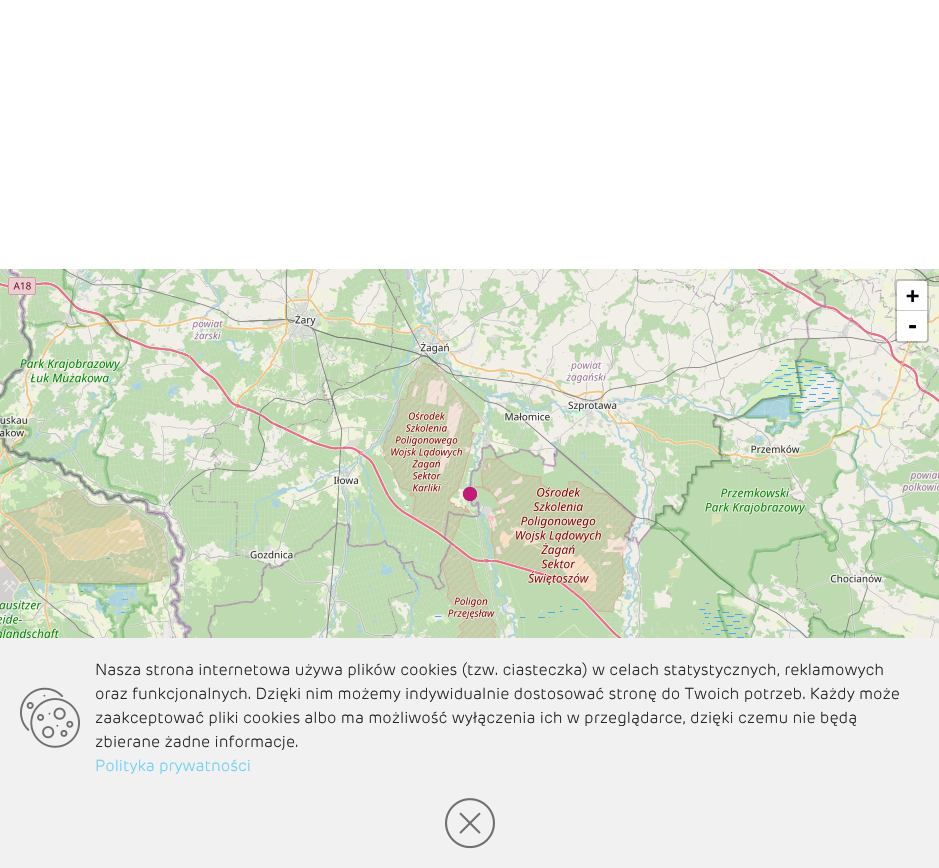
#include "include/core/SkBlurTypes.h"
#include "include/core/SkCanvas.h"
#include "include/core/SkData.h"
#include "include/core/SkFont.h"
#include "include/core/SkFontMgr.h"
#include "include/core/SkImage.h"
#include "include/core/SkMaskFilter.h"
#include "include/core/SkPaint.h"
#include "include/core/SkPathBuilder.h"
#include "include/core/SkTextBlob.h"
#include "include/effects/SkDashPathEffect.h"
#include "include/effects/SkGradientShader.h"
#include "include/utils/SkParsePath.h"

extern sk_sp<SkFontMgr> fontMgr;

void draw(SkCanvas* canvas) {
  SkPaint p;
  p.setAntiAlias(true);
  canvas->clear(SK_ColorWHITE);
  canvas->drawImageRect(SkImages::DeferredFromEncodedData(SkData::MakeFromFileName("images/1.png")), SkRect::MakeLTRB(0, 269, 31, 343), SkSamplingOptions());
  canvas->drawImageRect(SkImages::DeferredFromEncodedData(SkData::MakeFromFileName("images/2.png")), SkRect::MakeLTRB(31, 269, 287, 343), SkSamplingOptions());
  canvas->drawImageRect(SkImages::DeferredFromEncodedData(SkData::MakeFromFileName("images/3.png")), SkRect::MakeLTRB(287, 269, 543, 343), SkSamplingOptions());
  canvas->drawImageRect(SkImages::DeferredFromEncodedData(SkData::MakeFromFileName("images/4.png")), SkRect::MakeLTRB(543, 269, 799, 343), SkSamplingOptions());
  canvas->drawImageRect(SkImages::DeferredFromEncodedData(SkData::MakeFromFileName("images/5.png")), SkRect::MakeLTRB(799, 269, 939, 343), SkSamplingOptions());
  canvas->drawImageRect(SkImages::DeferredFromEncodedData(SkData::MakeFromFileName("images/6.png")), SkRect::MakeLTRB(0, 343, 31, 599), SkSamplingOptions());
  canvas->drawImageRect(SkImages::DeferredFromEncodedData(SkData::MakeFromFileName("images/7.png")), SkRect::MakeLTRB(31, 343, 287, 599), SkSamplingOptions());
  canvas->drawImageRect(SkImages::DeferredFromEncodedData(SkData::MakeFromFileName("images/8.png")), SkRect::MakeLTRB(287, 343, 543, 599), SkSamplingOptions());
  canvas->drawImageRect(SkImages::DeferredFromEncodedData(SkData::MakeFromFileName("images/9.png")), SkRect::MakeLTRB(543, 343, 799, 599), SkSamplingOptions());
  canvas->drawImageRect(SkImages::DeferredFromEncodedData(SkData::MakeFromFileName("images/10.png")), SkRect::MakeLTRB(799, 343, 939, 599), SkSamplingOptions());
  canvas->drawImageRect(SkImages::DeferredFromEncodedData(SkData::MakeFromFileName("images/11.png")), SkRect::MakeLTRB(0, 599, 31, 638), SkSamplingOptions());
  canvas->drawImageRect(SkImages::DeferredFromEncodedData(SkData::MakeFromFileName("images/12.png")), SkRect::MakeLTRB(31, 599, 287, 638), SkSamplingOptions());
  canvas->drawImageRect(SkImages::DeferredFromEncodedData(SkData::MakeFromFileName("images/13.png")), SkRect::MakeLTRB(287, 599, 543, 638), SkSamplingOptions());
  canvas->drawImageRect(SkImages::DeferredFromEncodedData(SkData::MakeFromFileName("images/14.png")), SkRect::MakeLTRB(543, 599, 799, 638), SkSamplingOptions());
  canvas->drawImageRect(SkImages::DeferredFromEncodedData(SkData::MakeFromFileName("images/15.png")), SkRect::MakeLTRB(799, 599, 939, 638), SkSamplingOptions());
  canvas->drawImageRect(SkImages::DeferredFromEncodedData(SkData::MakeFromFileName("images/16.png")), SkRect::MakeLTRB(463, 487, 477, 501), SkSamplingOptions());
  p.setStyle(SkPaint::kStroke_Style);
  p.setStrokeWidth(2);
  p.setColor(SkColorSetARGB(51, 0, 0, 0));
  canvas->drawRoundRect(SkRect::MakeLTRB(896, 280, 928, 342), 3, 3, p);
  p.setStyle(SkPaint::kFill_Style);
  p.setColor(SK_ColorWHITE);
  canvas->drawPath(SkPathBuilder().moveTo(899, 281).lineTo(925, 281).cubicTo(926, 281, 927, 282, 927, 283).lineTo(927, 311).lineTo(897, 311).lineTo(897, 283).cubicTo(897, 282, 898, 281, 899, 281).close().detach(), p);
  p.setColor(SkColorSetRGB(204, 204, 204));
  canvas->drawRect(SkRect::MakeLTRB(897, 310, 927, 311), p);
  p.setColor(SK_ColorWHITE);
  canvas->drawPath(SkPathBuilder().moveTo(897, 311).lineTo(927, 311).lineTo(927, 339).cubicTo(927, 340, 926, 341, 925, 341).lineTo(899, 341).cubicTo(898, 341, 897, 340, 897, 339).close().detach(), p);
  p.setColor(SkColorSetRGB(241, 241, 241));
  canvas->drawRect(SkRect::MakeLTRB(0, 638, 939, 868), p);
  canvas->drawImageRect(SkImages::DeferredFromEncodedData(SkData::MakeFromFileName("images/17.png")), SkRect::MakeLTRB(20, 687, 80, 748), SkSamplingOptions());
  canvas->drawImageRect(SkImages::DeferredFromEncodedData(SkData::MakeFromFileName("images/18.png")), SkRect::MakeLTRB(445, 798, 495, 849), SkSamplingOptions());
  SkFont font1(fontMgr->matchFamilyStyle("DejaVu Sans Mono", SkFontStyle::Bold()), 22);
  font1.setSubpixel(true);
  p.setColor(SK_ColorBLACK);
  canvas->drawString("+", 906, 303, font1, p);
  canvas->drawString("-", 906, 333, font1, p);
  SkFont font2(fontMgr->matchFamilyStyle("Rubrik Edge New", SkFontStyle(300, SkFontStyle::kNormal_Width, SkFontStyle::kUpright_Slant)), 16);
  font2.setSubpixel(true);
  p.setColor(SkColorSetRGB(35, 35, 35));
  canvas->drawString("Nasza strona internetowa używa plików cookies (tzw. ciasteczka) w celach statystycznych, reklamowych", 95, 675, font2, p);
  canvas->drawString("oraz funkcjonalnych. Dzięki nim możemy indywidualnie dostosować stronę do Twoich potrzeb. Każdy może", 95, 699, font2, p);
  canvas->drawString("zaakceptować pliki cookies albo ma możliwość wyłączenia ich w przeglądarce, dzięki czemu nie będą", 95, 723, font2, p);
  canvas->drawString("zbierane żadne informacje.", 95, 747, font2, p);
  p.setColor(SkColorSetRGB(109, 207, 246));
  canvas->drawString("Polityka prywatności", 95, 771, font2, p);
}
